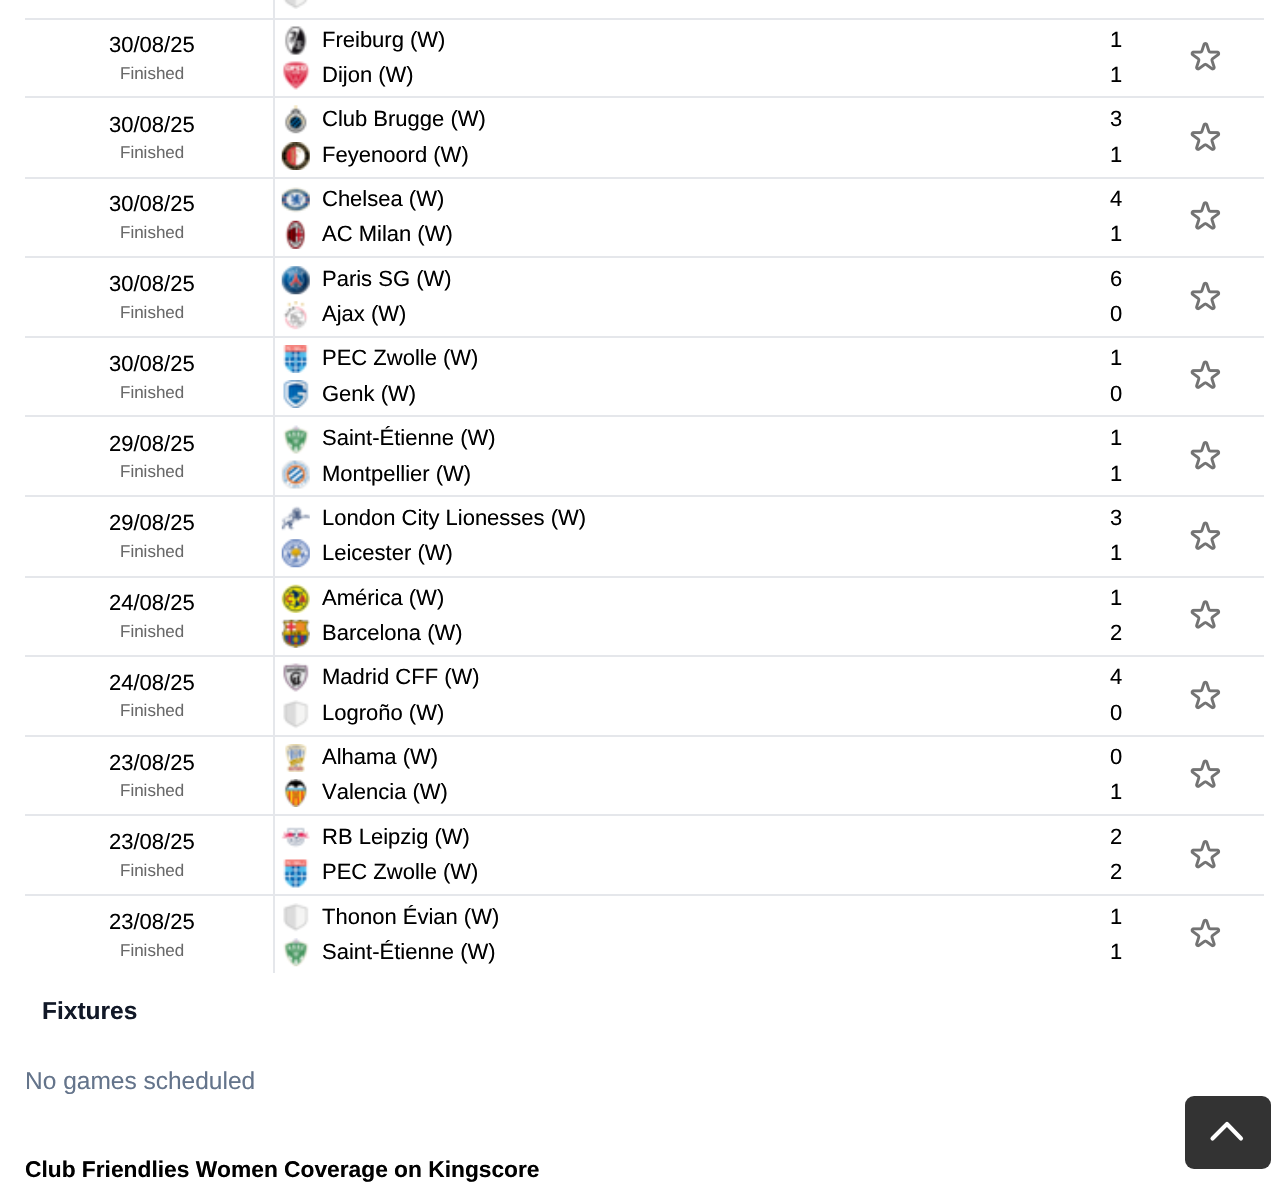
#include "include/core/SkBlurTypes.h"
#include "include/core/SkCanvas.h"
#include "include/core/SkData.h"
#include "include/core/SkFont.h"
#include "include/core/SkFontMgr.h"
#include "include/core/SkImage.h"
#include "include/core/SkMaskFilter.h"
#include "include/core/SkPaint.h"
#include "include/core/SkPathBuilder.h"
#include "include/core/SkTextBlob.h"
#include "include/effects/SkDashPathEffect.h"
#include "include/effects/SkGradientShader.h"
#include "include/utils/SkParsePath.h"

extern sk_sp<SkFontMgr> fontMgr;

void draw(SkCanvas* canvas) {
  SkPaint p;
  p.setAntiAlias(true);
  canvas->clear(SK_ColorWHITE);
  p.setColor(SkColorSetRGB(229, 231, 235));
  canvas->drawRect(SkRect::MakeLTRB(273, 0, 275, 18), p);
  canvas->drawImageRect(SkImages::DeferredFromEncodedData(SkData::MakeFromFileName("images/1.png")), SkRect::MakeLTRB(283, 0, 308, 9), SkSamplingOptions());
  canvas->drawRect(SkRect::MakeLTRB(25, 18, 1264, 20), p);
  canvas->drawRect(SkRect::MakeLTRB(273, 18, 275, 96), p);
  canvas->drawImageRect(SkImages::DeferredFromEncodedData(SkData::MakeFromFileName("images/2.png")), SkRect::MakeLTRB(284, 26, 307, 55), SkSamplingOptions());
  canvas->drawImageRect(SkImages::DeferredFromEncodedData(SkData::MakeFromFileName("images/3.png")), SkRect::MakeLTRB(282, 61, 310, 90), SkSamplingOptions());
  canvas->drawImageRect(SkImages::DeferredFromEncodedData(SkData::MakeFromFileName("images/4.png")), SkRect::MakeLTRB(1190, 42, 1221, 71), SkSamplingOptions());
  canvas->drawRect(SkRect::MakeLTRB(25, 96, 1264, 98), p);
  canvas->drawRect(SkRect::MakeLTRB(273, 96, 275, 177), p);
  canvas->drawImageRect(SkImages::DeferredFromEncodedData(SkData::MakeFromFileName("images/5.png")), SkRect::MakeLTRB(284, 105, 307, 134), SkSamplingOptions());
  canvas->drawImageRect(SkImages::DeferredFromEncodedData(SkData::MakeFromFileName("images/6.png")), SkRect::MakeLTRB(281, 142, 310, 170), SkSamplingOptions());
  canvas->drawImageRect(SkImages::DeferredFromEncodedData(SkData::MakeFromFileName("images/7.png")), SkRect::MakeLTRB(1190, 122, 1221, 151), SkSamplingOptions());
  canvas->drawRect(SkRect::MakeLTRB(25, 177, 1264, 179), p);
  canvas->drawRect(SkRect::MakeLTRB(273, 177, 275, 256), p);
  canvas->drawImageRect(SkImages::DeferredFromEncodedData(SkData::MakeFromFileName("images/8.png")), SkRect::MakeLTRB(281, 187, 310, 213), SkSamplingOptions());
  canvas->drawImageRect(SkImages::DeferredFromEncodedData(SkData::MakeFromFileName("images/9.png")), SkRect::MakeLTRB(285, 220, 306, 249), SkSamplingOptions());
  canvas->drawImageRect(SkImages::DeferredFromEncodedData(SkData::MakeFromFileName("images/10.png")), SkRect::MakeLTRB(1190, 201, 1221, 230), SkSamplingOptions());
  canvas->drawRect(SkRect::MakeLTRB(25, 256, 1264, 258), p);
  canvas->drawRect(SkRect::MakeLTRB(273, 256, 275, 336), p);
  canvas->drawImageRect(SkImages::DeferredFromEncodedData(SkData::MakeFromFileName("images/11.png")), SkRect::MakeLTRB(281, 266, 310, 295), SkSamplingOptions());
  canvas->drawImageRect(SkImages::DeferredFromEncodedData(SkData::MakeFromFileName("images/12.png")), SkRect::MakeLTRB(283, 301, 308, 330), SkSamplingOptions());
  canvas->drawImageRect(SkImages::DeferredFromEncodedData(SkData::MakeFromFileName("images/13.png")), SkRect::MakeLTRB(1190, 281, 1221, 311), SkSamplingOptions());
  canvas->drawRect(SkRect::MakeLTRB(25, 336, 1264, 338), p);
  canvas->drawRect(SkRect::MakeLTRB(273, 336, 275, 415), p);
  canvas->drawImageRect(SkImages::DeferredFromEncodedData(SkData::MakeFromFileName("images/14.png")), SkRect::MakeLTRB(283, 345, 309, 373), SkSamplingOptions());
  canvas->drawImageRect(SkImages::DeferredFromEncodedData(SkData::MakeFromFileName("images/15.png")), SkRect::MakeLTRB(283, 380, 309, 408), SkSamplingOptions());
  canvas->drawImageRect(SkImages::DeferredFromEncodedData(SkData::MakeFromFileName("images/7.png")), SkRect::MakeLTRB(1190, 360, 1221, 389), SkSamplingOptions());
  canvas->drawRect(SkRect::MakeLTRB(25, 415, 1264, 417), p);
  canvas->drawRect(SkRect::MakeLTRB(273, 415, 275, 495), p);
  canvas->drawImageRect(SkImages::DeferredFromEncodedData(SkData::MakeFromFileName("images/16.png")), SkRect::MakeLTRB(283, 425, 309, 454), SkSamplingOptions());
  canvas->drawImageRect(SkImages::DeferredFromEncodedData(SkData::MakeFromFileName("images/17.png")), SkRect::MakeLTRB(281, 460, 310, 489), SkSamplingOptions());
  canvas->drawImageRect(SkImages::DeferredFromEncodedData(SkData::MakeFromFileName("images/4.png")), SkRect::MakeLTRB(1190, 441, 1221, 470), SkSamplingOptions());
  canvas->drawRect(SkRect::MakeLTRB(25, 495, 1264, 497), p);
  canvas->drawRect(SkRect::MakeLTRB(273, 495, 275, 576), p);
  canvas->drawImageRect(SkImages::DeferredFromEncodedData(SkData::MakeFromFileName("images/18.png")), SkRect::MakeLTRB(281, 506, 310, 531), SkSamplingOptions());
  canvas->drawImageRect(SkImages::DeferredFromEncodedData(SkData::MakeFromFileName("images/19.png")), SkRect::MakeLTRB(281, 539, 310, 568), SkSamplingOptions());
  canvas->drawImageRect(SkImages::DeferredFromEncodedData(SkData::MakeFromFileName("images/7.png")), SkRect::MakeLTRB(1190, 521, 1221, 550), SkSamplingOptions());
  canvas->drawRect(SkRect::MakeLTRB(25, 576, 1264, 578), p);
  canvas->drawRect(SkRect::MakeLTRB(273, 576, 275, 655), p);
  canvas->drawImageRect(SkImages::DeferredFromEncodedData(SkData::MakeFromFileName("images/20.png")), SkRect::MakeLTRB(281, 584, 310, 613), SkSamplingOptions());
  canvas->drawImageRect(SkImages::DeferredFromEncodedData(SkData::MakeFromFileName("images/21.png")), SkRect::MakeLTRB(281, 619, 310, 648), SkSamplingOptions());
  canvas->drawImageRect(SkImages::DeferredFromEncodedData(SkData::MakeFromFileName("images/10.png")), SkRect::MakeLTRB(1190, 600, 1221, 629), SkSamplingOptions());
  canvas->drawRect(SkRect::MakeLTRB(25, 655, 1264, 657), p);
  canvas->drawRect(SkRect::MakeLTRB(273, 655, 275, 735), p);
  canvas->drawImageRect(SkImages::DeferredFromEncodedData(SkData::MakeFromFileName("images/22.png")), SkRect::MakeLTRB(283, 663, 309, 692), SkSamplingOptions());
  canvas->drawImageRect(SkImages::DeferredFromEncodedData(SkData::MakeFromFileName("images/23.png")), SkRect::MakeLTRB(283, 700, 309, 729), SkSamplingOptions());
  canvas->drawImageRect(SkImages::DeferredFromEncodedData(SkData::MakeFromFileName("images/13.png")), SkRect::MakeLTRB(1190, 680, 1221, 710), SkSamplingOptions());
  canvas->drawRect(SkRect::MakeLTRB(25, 735, 1264, 737), p);
  canvas->drawRect(SkRect::MakeLTRB(273, 735, 275, 814), p);
  canvas->drawImageRect(SkImages::DeferredFromEncodedData(SkData::MakeFromFileName("images/24.png")), SkRect::MakeLTRB(285, 744, 307, 772), SkSamplingOptions());
  canvas->drawImageRect(SkImages::DeferredFromEncodedData(SkData::MakeFromFileName("images/25.png")), SkRect::MakeLTRB(283, 779, 308, 807), SkSamplingOptions());
  canvas->drawImageRect(SkImages::DeferredFromEncodedData(SkData::MakeFromFileName("images/7.png")), SkRect::MakeLTRB(1190, 759, 1221, 788), SkSamplingOptions());
  canvas->drawRect(SkRect::MakeLTRB(25, 814, 1264, 816), p);
  canvas->drawRect(SkRect::MakeLTRB(273, 814, 275, 894), p);
  canvas->drawImageRect(SkImages::DeferredFromEncodedData(SkData::MakeFromFileName("images/26.png")), SkRect::MakeLTRB(281, 827, 310, 848), SkSamplingOptions());
  canvas->drawImageRect(SkImages::DeferredFromEncodedData(SkData::MakeFromFileName("images/27.png")), SkRect::MakeLTRB(283, 859, 309, 888), SkSamplingOptions());
  canvas->drawImageRect(SkImages::DeferredFromEncodedData(SkData::MakeFromFileName("images/4.png")), SkRect::MakeLTRB(1190, 840, 1221, 869), SkSamplingOptions());
  canvas->drawRect(SkRect::MakeLTRB(25, 894, 1264, 896), p);
  canvas->drawRect(SkRect::MakeLTRB(273, 894, 275, 973), p);
  canvas->drawImageRect(SkImages::DeferredFromEncodedData(SkData::MakeFromFileName("images/23.png")), SkRect::MakeLTRB(283, 903, 309, 932), SkSamplingOptions());
  canvas->drawImageRect(SkImages::DeferredFromEncodedData(SkData::MakeFromFileName("images/28.png")), SkRect::MakeLTRB(283, 938, 309, 967), SkSamplingOptions());
  canvas->drawImageRect(SkImages::DeferredFromEncodedData(SkData::MakeFromFileName("images/13.png")), SkRect::MakeLTRB(1190, 918, 1221, 948), SkSamplingOptions());
  p.setColor(SkColorSetRGB(51, 51, 51));
  canvas->drawRoundRect(SkRect::MakeLTRB(1185, 1096, 1271, 1169), 9, 9, p);
  p.setStyle(SkPaint::kStroke_Style);
  p.setStrokeWidth(4.1f);
  p.setStrokeCap(SkPaint::kRound_Cap);
  p.setStrokeJoin(SkPaint::kRound_Join);
  p.setColor(SK_ColorWHITE);
  canvas->drawPath(SkPathBuilder().moveTo(1212.5f, 1138.5f).lineTo(1227, 1124).lineTo(1241, 1138.5f).detach(), p);
  SkFont font1(fontMgr->matchFamilyStyle("Liberation Sans", SkFontStyle::Normal()), 22);
  font1.setSubpixel(true);
  p.setStyle(SkPaint::kFill_Style);
  p.setColor(SK_ColorBLACK);
  canvas->drawString("30/08/25", 109, 52, font1, p);
  SkFont font2(fontMgr->matchFamilyStyle("Liberation Sans", SkFontStyle::Normal()), 17);
  font2.setSubpixel(true);
  p.setColor(SkColorSetRGB(105, 105, 105));
  canvas->drawString("Finished", 120, 79, font2, p);
  p.setColor(SK_ColorBLACK);
  canvas->drawString("Freiburg (W)", 322, 47, font1, p);
  canvas->drawString("1", 1110, 47, font1, p);
  canvas->drawString("Dijon (W)", 322, 82, font1, p);
  canvas->drawString("1", 1110, 82, font1, p);
  canvas->drawString("30/08/25", 109, 132, font1, p);
  p.setColor(SkColorSetRGB(105, 105, 105));
  canvas->drawString("Finished", 120, 158, font2, p);
  p.setColor(SK_ColorBLACK);
  canvas->drawString("Club Brugge (W)", 322, 126, font1, p);
  canvas->drawString("3", 1110, 126, font1, p);
  canvas->drawString("Feyenoord (W)", 322, 162, font1, p);
  canvas->drawString("1", 1110, 162, font1, p);
  canvas->drawString("30/08/25", 109, 211, font1, p);
  p.setColor(SkColorSetRGB(105, 105, 105));
  canvas->drawString("Finished", 120, 238, font2, p);
  p.setColor(SK_ColorBLACK);
  canvas->drawString("Chelsea (W)", 322, 206, font1, p);
  canvas->drawString("4", 1110, 206, font1, p);
  canvas->drawString("AC Milan (W)", 322, 241, font1, p);
  canvas->drawString("1", 1110, 241, font1, p);
  canvas->drawString("30/08/25", 109, 291, font1, p);
  p.setColor(SkColorSetRGB(105, 105, 105));
  canvas->drawString("Finished", 120, 318, font2, p);
  p.setColor(SK_ColorBLACK);
  canvas->drawString("Paris SG (W)", 322, 286, font1, p);
  canvas->drawString("6", 1110, 286, font1, p);
  canvas->drawString("Ajax (W)", 322, 321, font1, p);
  canvas->drawString("0", 1110, 321, font1, p);
  canvas->drawString("30/08/25", 109, 371, font1, p);
  p.setColor(SkColorSetRGB(105, 105, 105));
  canvas->drawString("Finished", 120, 398, font2, p);
  p.setColor(SK_ColorBLACK);
  canvas->drawString("PEC Zwolle (W)", 322, 365, font1, p);
  canvas->drawString("1", 1110, 365, font1, p);
  canvas->drawString("Genk (W)", 322, 401, font1, p);
  canvas->drawString("0", 1110, 401, font1, p);
  canvas->drawString("29/08/25", 109, 451, font1, p);
  p.setColor(SkColorSetRGB(105, 105, 105));
  canvas->drawString("Finished", 120, 477, font2, p);
  p.setColor(SK_ColorBLACK);
  canvas->drawString("Saint-Étienne (W)", 322, 445, font1, p);
  canvas->drawString("1", 1110, 445, font1, p);
  canvas->drawString("Montpellier (W)", 322, 481, font1, p);
  canvas->drawString("1", 1110, 481, font1, p);
  canvas->drawString("29/08/25", 109, 530, font1, p);
  p.setColor(SkColorSetRGB(105, 105, 105));
  canvas->drawString("Finished", 120, 557, font2, p);
  p.setColor(SK_ColorBLACK);
  canvas->drawString("London City Lionesses (W)", 322, 525, font1, p);
  canvas->drawString("3", 1110, 525, font1, p);
  canvas->drawString("Leicester (W)", 322, 560, font1, p);
  canvas->drawString("1", 1110, 560, font1, p);
  canvas->drawString("24/08/25", 109, 610, font1, p);
  p.setColor(SkColorSetRGB(105, 105, 105));
  canvas->drawString("Finished", 120, 637, font2, p);
  p.setColor(SK_ColorBLACK);
  canvas->drawString("América (W)", 322, 605, font1, p);
  canvas->drawString("1", 1110, 605, font1, p);
  canvas->drawString("Barcelona (W)", 322, 640, font1, p);
  canvas->drawString("2", 1110, 640, font1, p);
  canvas->drawString("24/08/25", 109, 690, font1, p);
  p.setColor(SkColorSetRGB(105, 105, 105));
  canvas->drawString("Finished", 120, 716, font2, p);
  p.setColor(SK_ColorBLACK);
  canvas->drawString("Madrid CFF (W)", 322, 684, font1, p);
  canvas->drawString("4", 1110, 684, font1, p);
  canvas->drawString("Logroño (W)", 322, 720, font1, p);
  canvas->drawString("0", 1110, 720, font1, p);
  canvas->drawString("23/08/25", 109, 770, font1, p);
  p.setColor(SkColorSetRGB(105, 105, 105));
  canvas->drawString("Finished", 120, 796, font2, p);
  p.setColor(SK_ColorBLACK);
  canvas->drawString("Alhama (W)", 322, 764, font1, p);
  canvas->drawString("0", 1110, 764, font1, p);
  canvas->drawString("Valencia (W)", 322, 799, font1, p);
  canvas->drawString("1", 1110, 799, font1, p);
  canvas->drawString("23/08/25", 109, 849, font1, p);
  p.setColor(SkColorSetRGB(105, 105, 105));
  canvas->drawString("Finished", 120, 876, font2, p);
  p.setColor(SK_ColorBLACK);
  canvas->drawString("RB Leipzig (W)", 322, 844, font1, p);
  canvas->drawString("2", 1110, 844, font1, p);
  canvas->drawString("PEC Zwolle (W)", 322, 879, font1, p);
  canvas->drawString("2", 1110, 879, font1, p);
  canvas->drawString("23/08/25", 109, 929, font1, p);
  p.setColor(SkColorSetRGB(105, 105, 105));
  canvas->drawString("Finished", 120, 956, font2, p);
  p.setColor(SK_ColorBLACK);
  canvas->drawString("Thonon Évian (W)", 322, 924, font1, p);
  canvas->drawString("1", 1110, 924, font1, p);
  canvas->drawString("Saint-Étienne (W)", 322, 959, font1, p);
  canvas->drawString("1", 1110, 959, font1, p);
  SkFont font3(fontMgr->matchFamilyStyle("Liberation Sans", SkFontStyle::Bold()), 24.5f);
  font3.setSubpixel(true);
  p.setColor(SkColorSetRGB(17, 24, 39));
  canvas->drawString("Fixtures", 42, 1019, font3, p);
  SkFont font4(fontMgr->matchFamilyStyle("Liberation Sans", SkFontStyle::Normal()), 24.5f);
  font4.setSubpixel(true);
  p.setColor(SkColorSetRGB(100, 116, 139));
  canvas->drawString("No games scheduled", 25, 1089, font4, p);
  SkFont font5(fontMgr->matchFamilyStyle("Liberation Sans", SkFontStyle::Bold()), 22.75f);
  font5.setSubpixel(true);
  p.setColor(SK_ColorBLACK);
  canvas->drawString("Club Friendlies Women Coverage on Kingscore", 25, 1177, font5, p);
}
